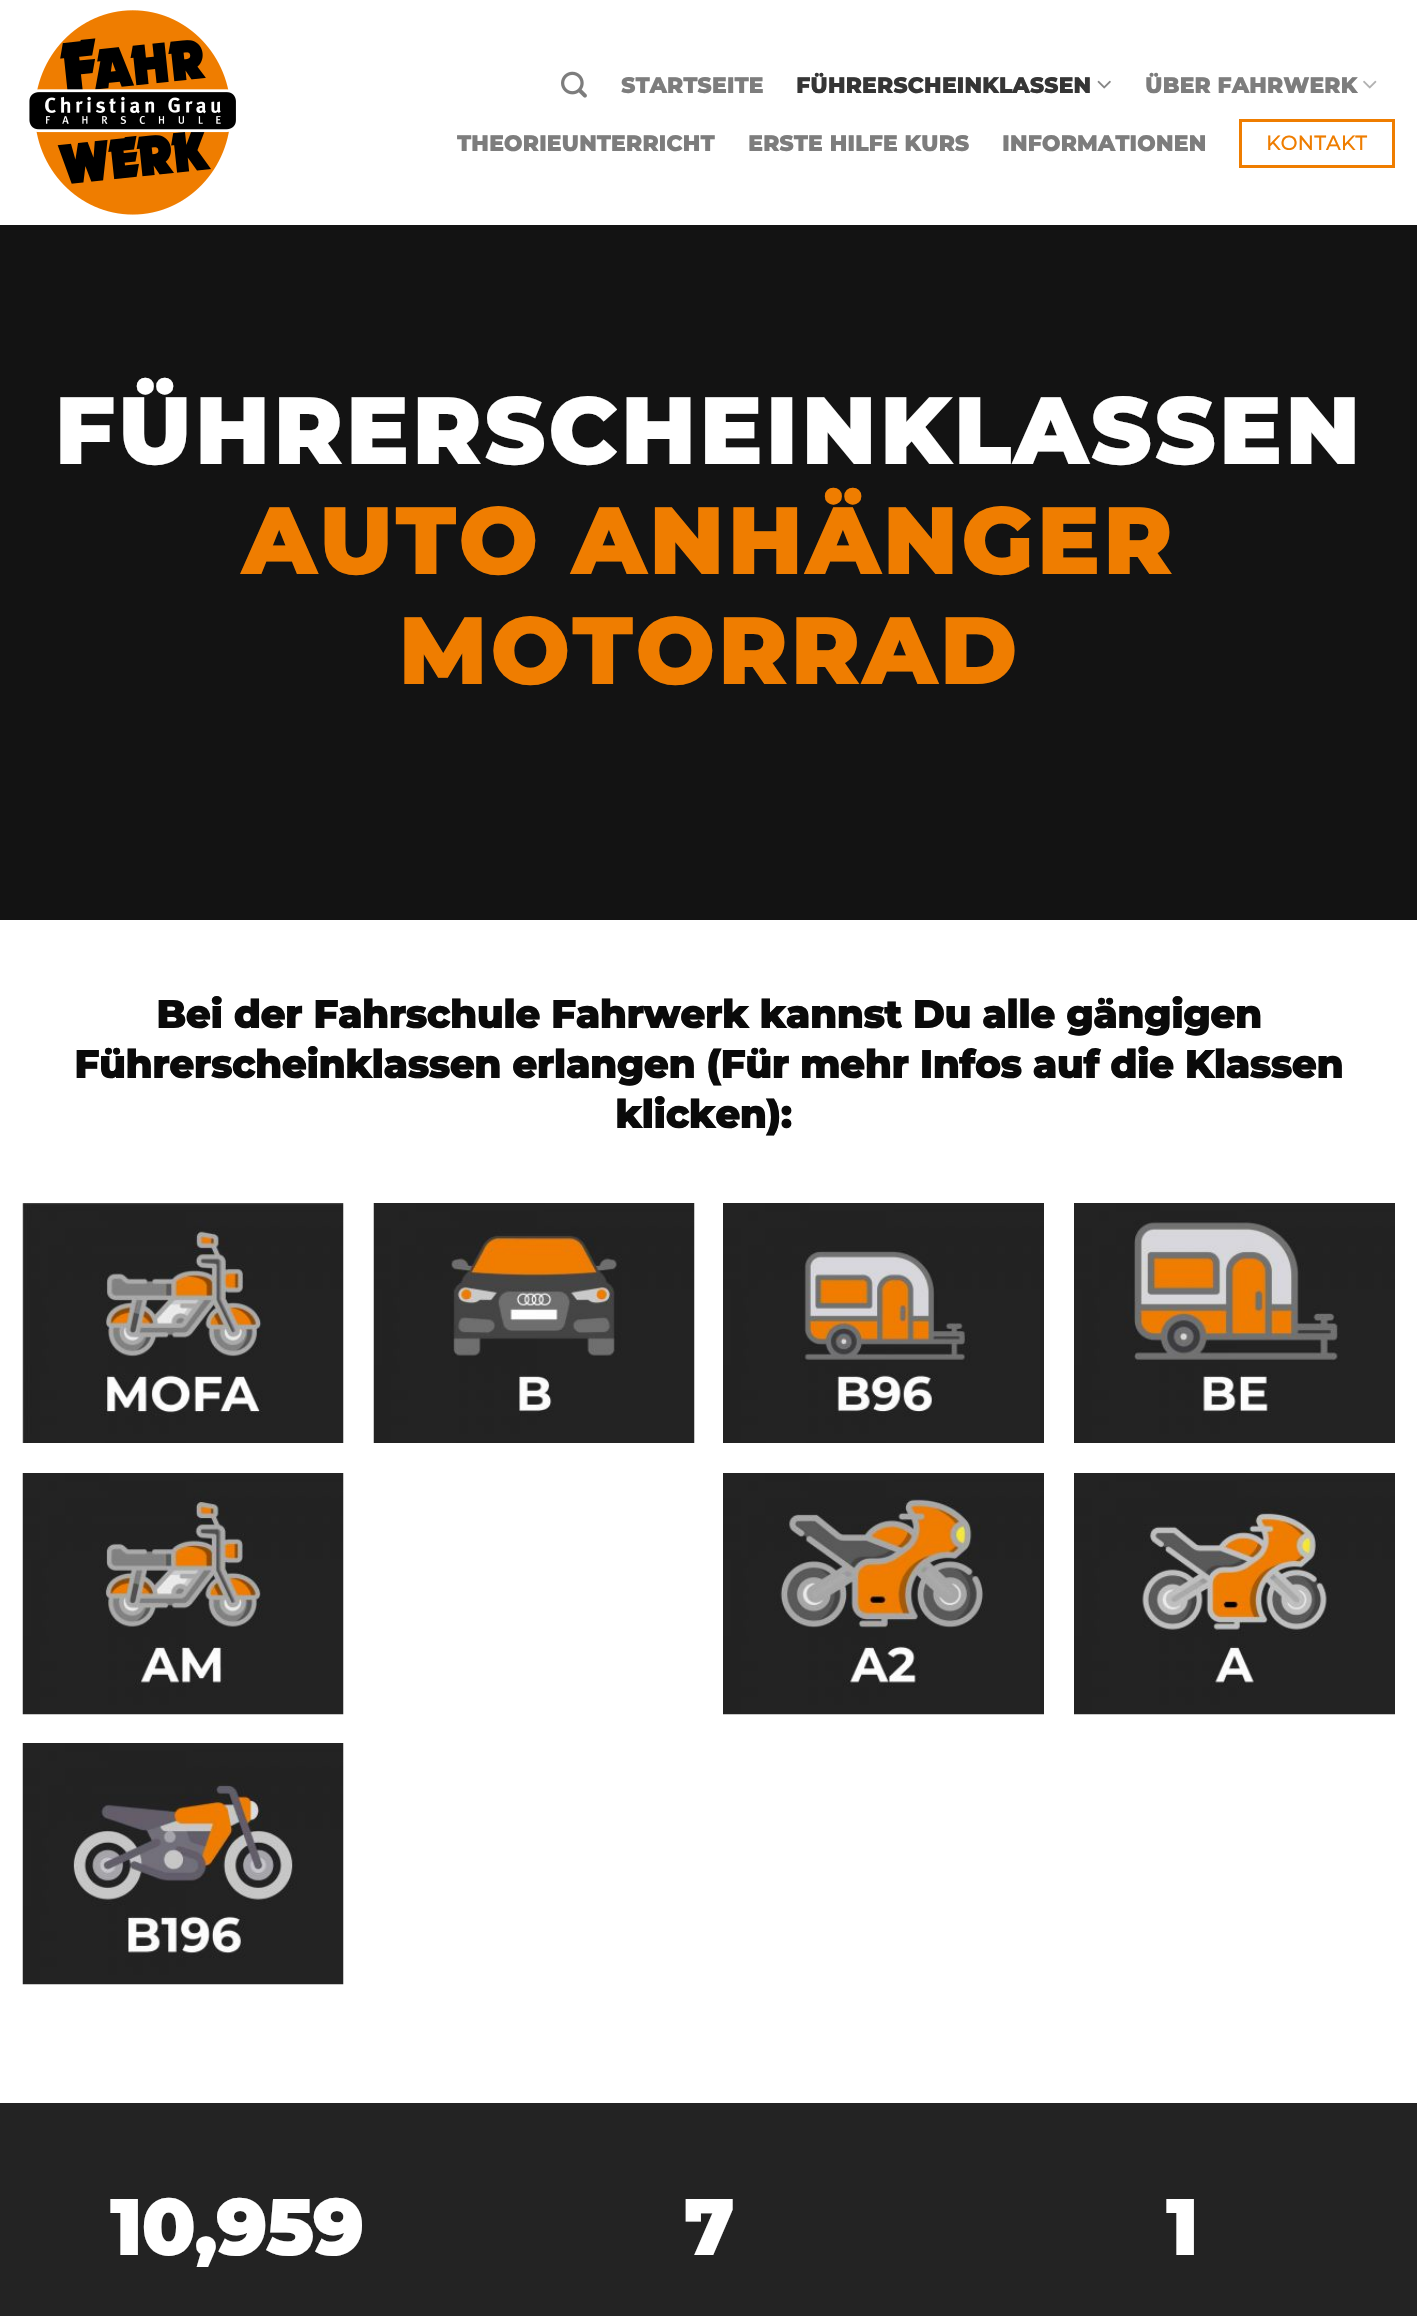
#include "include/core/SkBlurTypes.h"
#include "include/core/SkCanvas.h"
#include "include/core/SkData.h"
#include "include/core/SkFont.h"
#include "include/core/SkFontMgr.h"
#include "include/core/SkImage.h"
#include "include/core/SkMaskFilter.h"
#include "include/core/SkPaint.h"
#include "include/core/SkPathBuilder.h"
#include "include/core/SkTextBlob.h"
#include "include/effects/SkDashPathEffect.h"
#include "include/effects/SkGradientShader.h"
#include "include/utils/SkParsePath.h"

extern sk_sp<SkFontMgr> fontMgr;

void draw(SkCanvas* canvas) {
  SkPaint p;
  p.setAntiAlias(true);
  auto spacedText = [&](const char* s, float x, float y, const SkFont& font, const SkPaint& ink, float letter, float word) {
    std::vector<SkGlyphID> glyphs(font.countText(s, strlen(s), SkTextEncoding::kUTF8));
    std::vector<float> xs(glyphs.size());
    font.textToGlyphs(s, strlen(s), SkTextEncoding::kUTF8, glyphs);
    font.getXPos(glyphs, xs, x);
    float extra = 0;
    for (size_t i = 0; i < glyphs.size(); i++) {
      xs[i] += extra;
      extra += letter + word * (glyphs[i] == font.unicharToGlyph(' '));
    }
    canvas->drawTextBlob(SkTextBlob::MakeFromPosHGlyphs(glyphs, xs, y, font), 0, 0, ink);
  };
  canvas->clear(SK_ColorWHITE);
  canvas->drawImageRect(SkImages::DeferredFromEncodedData(SkData::MakeFromFileName("images/1.png")), SkRect::MakeLTRB(29, 10, 236, 215), SkSamplingOptions());
  canvas->drawImageRect(SkImages::DeferredFromEncodedData(SkData::MakeFromFileName("images/2.png")), SkRect::MakeLTRB(561, 71, 587, 98), SkSamplingOptions());
  canvas->drawImageRect(SkImages::DeferredFromEncodedData(SkData::MakeFromFileName("images/3.png")), SkRect::MakeLTRB(1097, 80, 1111, 89), SkSamplingOptions());
  canvas->drawImageRect(SkImages::DeferredFromEncodedData(SkData::MakeFromFileName("images/4.png")), SkRect::MakeLTRB(1363, 80, 1377, 89), SkSamplingOptions());
  p.setStyle(SkPaint::kStroke_Style);
  p.setStrokeWidth(3);
  p.setColor(SkColorSetRGB(239, 125, 0));
  canvas->drawRect(SkRect::MakeLTRB(1240.5f, 120.5f, 1393.5f, 166.5f), p);
  p.setStyle(SkPaint::kFill_Style);
  p.setColor(SkColorSetRGB(19, 19, 19));
  canvas->drawRect(SkRect::MakeLTRB(0, 225, 1417, 920), p);
  canvas->drawImageRect(SkImages::DeferredFromEncodedData(SkData::MakeFromFileName("images/5.png")), SkRect::MakeLTRB(22, 1203, 344, 1443), SkSamplingOptions());
  canvas->drawImageRect(SkImages::DeferredFromEncodedData(SkData::MakeFromFileName("images/6.png")), SkRect::MakeLTRB(373, 1203, 695, 1443), SkSamplingOptions());
  canvas->drawImageRect(SkImages::DeferredFromEncodedData(SkData::MakeFromFileName("images/7.png")), SkRect::MakeLTRB(723, 1203, 1044, 1443), SkSamplingOptions());
  canvas->drawImageRect(SkImages::DeferredFromEncodedData(SkData::MakeFromFileName("images/8.png")), SkRect::MakeLTRB(1074, 1203, 1395, 1443), SkSamplingOptions());
  canvas->drawImageRect(SkImages::DeferredFromEncodedData(SkData::MakeFromFileName("images/9.png")), SkRect::MakeLTRB(22, 1473, 344, 1715), SkSamplingOptions());
  canvas->drawImageRect(SkImages::DeferredFromEncodedData(SkData::MakeFromFileName("images/10.png")), SkRect::MakeLTRB(723, 1473, 1044, 1715), SkSamplingOptions());
  canvas->drawImageRect(SkImages::DeferredFromEncodedData(SkData::MakeFromFileName("images/11.png")), SkRect::MakeLTRB(1074, 1473, 1395, 1715), SkSamplingOptions());
  canvas->drawImageRect(SkImages::DeferredFromEncodedData(SkData::MakeFromFileName("images/12.png")), SkRect::MakeLTRB(22, 1743, 344, 1985), SkSamplingOptions());
  p.setColor(SkColorSetRGB(35, 35, 35));
  canvas->drawRect(SkRect::MakeLTRB(0, 2103, 1417, 2316), p);
  SkFont font1(fontMgr->matchFamilyStyle("Montserrat", SkFontStyle::Bold()), 21.6f);
  font1.setSubpixel(true);
  p.setColor(SkColorSetRGB(125, 125, 125));
  spacedText("STARTSEITE", 621, 93, font1, p, 0.4f, 0);
  p.setColor(SkColorSetRGB(53, 53, 53));
  spacedText("FÜHRERSCHEINKLASSEN", 796, 93, font1, p, 0.4f, 0);
  p.setColor(SkColorSetRGB(125, 125, 125));
  spacedText("ÜBER FAHRWERK", 1145, 93, font1, p, 0.4f, 0);
  spacedText("THEORIEUNTERRICHT", 457, 151, font1, p, 0.4f, 0);
  spacedText("ERSTE HILFE KURS", 748, 151, font1, p, 0.4f, 0);
  spacedText("INFORMATIONEN", 1002, 151, font1, p, 0.4f, 0);
  SkFont font2(fontMgr->matchFamilyStyle("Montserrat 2", SkFontStyle::Bold()), 19.75f);
  font2.setSubpixel(true);
  p.setColor(SkColorSetRGB(239, 125, 0));
  spacedText("KONTAKT", 1266, 150, font2, p, 0.5f, 0);
  SkFont font3(fontMgr->matchFamilyStyle("Montserrat", SkFontStyle::Bold()), 91.75f);
  font3.setSubpixel(true);
  p.setColor(SK_ColorWHITE);
  spacedText("FÜHRERSCHEINKLASSEN", 54, 464, font3, p, 4.6f, 0);
  p.setColor(SkColorSetRGB(239, 125, 0));
  spacedText("AUTO ANHÄNGER", 242, 574, font3, p, 4.6f, 0);
  spacedText("MOTORRAD", 398, 684, font3, p, 4.6f, 0);
  SkFont font4(fontMgr->matchFamilyStyle("Montserrat", SkFontStyle::Bold()), 38.4f);
  font4.setSubpixel(true);
  p.setColor(SkColorSetRGB(10, 10, 10));
  canvas->drawString("Bei der Fahrschule Fahrwerk kannst Du alle gängigen", 156, 1028, font4, p);
  canvas->drawString("Führerscheinklassen erlangen (Für mehr Infos auf die Klassen", 74, 1078, font4, p);
  canvas->drawString("klicken):", 615, 1128, font4, p);
  SkFont font5(fontMgr->matchFamilyStyle("Montserrat", SkFontStyle::Bold()), 77);
  font5.setSubpixel(true);
  p.setColor(SK_ColorWHITE);
  canvas->drawString("10,959", 110, 2255, font5, p);
  canvas->drawString("7", 684, 2255, font5, p);
  canvas->drawString("1", 1166, 2255, font5, p);
}
